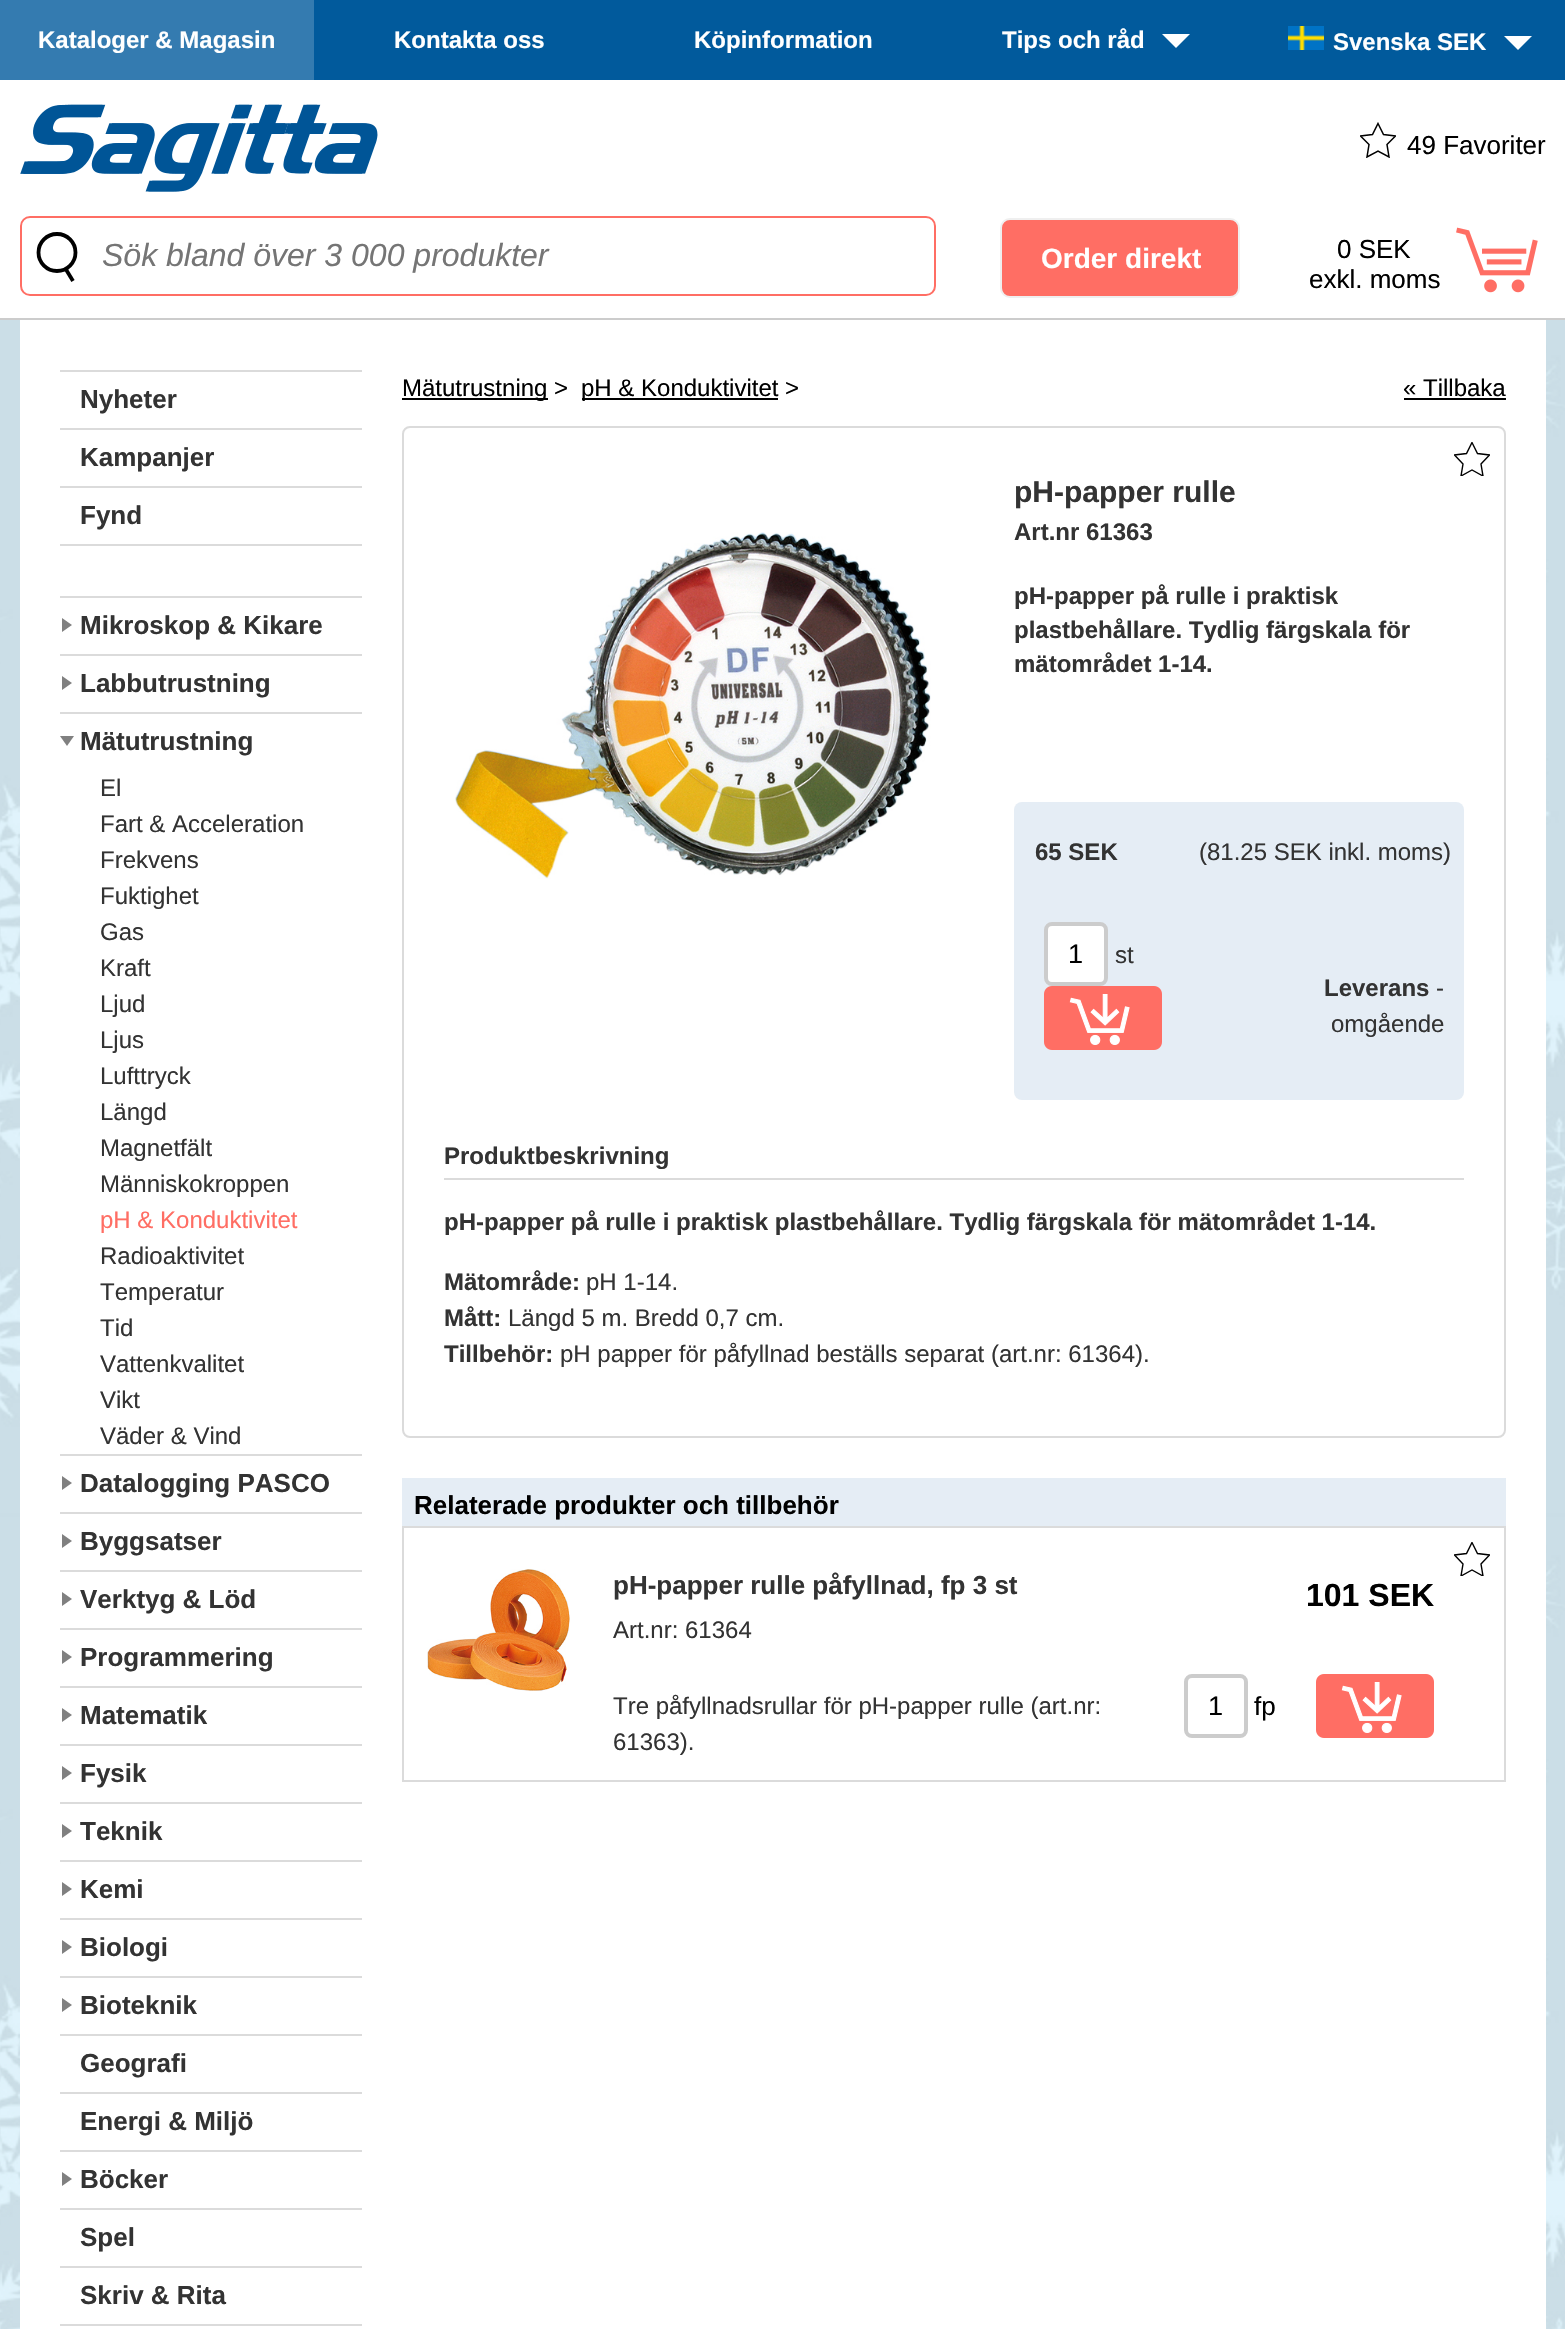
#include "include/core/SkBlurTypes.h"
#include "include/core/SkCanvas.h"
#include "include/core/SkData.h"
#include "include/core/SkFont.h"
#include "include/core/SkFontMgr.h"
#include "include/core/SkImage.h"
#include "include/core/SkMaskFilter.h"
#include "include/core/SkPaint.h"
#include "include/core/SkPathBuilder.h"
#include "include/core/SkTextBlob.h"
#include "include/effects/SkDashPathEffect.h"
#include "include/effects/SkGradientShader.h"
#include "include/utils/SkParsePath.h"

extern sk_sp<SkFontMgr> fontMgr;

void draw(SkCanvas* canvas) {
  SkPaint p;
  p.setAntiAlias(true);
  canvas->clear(SK_ColorWHITE);
  p.setColor(SkColorSetRGB(1, 90, 156));
  canvas->drawRect(SkRect::MakeLTRB(314, 0, 1565, 80), p);
  p.setColor(SkColorSetRGB(52, 123, 176));
  canvas->drawRect(SkRect::MakeLTRB(0, 0, 314, 80), p);
  p.setColor(SK_ColorWHITE);
  canvas->drawPath(SkPathBuilder().moveTo(1162, 34).lineTo(1176, 48).lineTo(1190, 34).close().detach(), p);
  canvas->drawImageRect(SkImages::DeferredFromEncodedData(SkData::MakeFromFileName("images/1.png")), SkRect::MakeLTRB(1288, 26, 1324, 50), SkSamplingOptions());
  canvas->drawPath(SkPathBuilder().moveTo(1504, 36).lineTo(1518, 50).lineTo(1532, 36).close().detach(), p);
  canvas->drawImageRect(SkImages::DeferredFromEncodedData(SkData::MakeFromFileName("images/2.png")), SkRect::MakeLTRB(20, 104, 378, 192), SkSamplingOptions());
  canvas->save();
  canvas->clipRect(SkRect::MakeLTRB(1360, 122, 1396, 158));
  p.setStyle(SkPaint::kStroke_Style);
  p.setStrokeWidth(1.5f);
  p.setColor(SK_ColorBLACK);
  canvas->drawPath(SkPathBuilder().moveTo(1378, 123.5f).lineTo(1383.5f, 134.5f).lineTo(1395.5f, 136).lineTo(1387, 144.5f).lineTo(1389, 157).lineTo(1378, 151).lineTo(1367, 157).lineTo(1369, 144.5f).lineTo(1360.5f, 136).lineTo(1372.5f, 134.5f).close().detach(), p);
  canvas->restore();
  p.setStyle(SkPaint::kFill_Style);
  p.setColor(SkColorSetRGB(204, 204, 204));
  canvas->drawRect(SkRect::MakeLTRB(0, 318, 1565, 320), p);
  p.setStyle(SkPaint::kStroke_Style);
  p.setStrokeWidth(3.8f);
  p.setColor(SK_ColorBLACK);
  canvas->drawCircle(57, 252.5f, 18.5f, p);
  canvas->drawPath(SkPathBuilder().moveTo(66, 269.5f).lineTo(73, 281).detach(), p);
  p.setStrokeWidth(2);
  p.setColor(SkColorSetRGB(255, 110, 100));
  canvas->drawRoundRect(SkRect::MakeLTRB(21, 217, 935, 295), 9, 9, p);
  p.setStyle(SkPaint::kFill_Style);
  canvas->drawRoundRect(SkRect::MakeLTRB(1001, 219, 1239, 297), 9, 9, p);
  p.setStyle(SkPaint::kStroke_Style);
  p.setColor(SkColorSetRGB(239, 239, 239));
  canvas->drawRoundRect(SkRect::MakeLTRB(1001, 219, 1239, 297), 9, 9, p);
  canvas->drawImageRect(SkImages::DeferredFromEncodedData(SkData::MakeFromFileName("images/3.png")), SkRect::MakeLTRB(1456, 227, 1538, 293), SkSamplingOptions());
  canvas->drawImageRect(SkImages::DeferredFromEncodedData(SkData::MakeFromFileName("images/4.png")), SkRect::MakeLTRB(0, 320, 1565, 2329), SkSamplingOptions());
  p.setStyle(SkPaint::kFill_Style);
  p.setColor(SK_ColorWHITE);
  canvas->drawRect(SkRect::MakeLTRB(20, 320, 1546, 2329), p);
  p.setColor(SkColorSetRGB(219, 219, 219));
  canvas->drawRect(SkRect::MakeLTRB(60, 370, 362, 372), p);
  canvas->drawRect(SkRect::MakeLTRB(60, 428, 362, 430), p);
  canvas->drawRect(SkRect::MakeLTRB(60, 486, 362, 488), p);
  canvas->drawRect(SkRect::MakeLTRB(60, 544, 362, 546), p);
  canvas->drawRect(SkRect::MakeLTRB(60, 596, 362, 598), p);
  p.setColor(SkColorSetRGB(128, 128, 128));
  canvas->drawPath(SkPathBuilder().moveTo(62, 632).lineTo(62, 618).lineTo(72, 625).close().detach(), p);
  p.setColor(SkColorSetRGB(219, 219, 219));
  canvas->drawRect(SkRect::MakeLTRB(60, 654, 362, 656), p);
  p.setColor(SkColorSetRGB(128, 128, 128));
  canvas->drawPath(SkPathBuilder().moveTo(62, 690).lineTo(62, 676).lineTo(72, 683).close().detach(), p);
  p.setColor(SkColorSetRGB(219, 219, 219));
  canvas->drawRect(SkRect::MakeLTRB(60, 712, 362, 714), p);
  p.setColor(SkColorSetRGB(128, 128, 128));
  canvas->drawPath(SkPathBuilder().moveTo(60, 736).lineTo(74, 736).lineTo(67, 746).close().detach(), p);
  p.setColor(SkColorSetRGB(219, 219, 219));
  canvas->drawRect(SkRect::MakeLTRB(60, 1454, 362, 1456), p);
  p.setColor(SkColorSetRGB(128, 128, 128));
  canvas->drawPath(SkPathBuilder().moveTo(62, 1490).lineTo(62, 1476).lineTo(72, 1483).close().detach(), p);
  p.setColor(SkColorSetRGB(219, 219, 219));
  canvas->drawRect(SkRect::MakeLTRB(60, 1512, 362, 1514), p);
  p.setColor(SkColorSetRGB(128, 128, 128));
  canvas->drawPath(SkPathBuilder().moveTo(62, 1548).lineTo(62, 1534).lineTo(72, 1541).close().detach(), p);
  p.setColor(SkColorSetRGB(219, 219, 219));
  canvas->drawRect(SkRect::MakeLTRB(60, 1570, 362, 1572), p);
  p.setColor(SkColorSetRGB(128, 128, 128));
  canvas->drawPath(SkPathBuilder().moveTo(62, 1606).lineTo(62, 1592).lineTo(72, 1599).close().detach(), p);
  p.setColor(SkColorSetRGB(219, 219, 219));
  canvas->drawRect(SkRect::MakeLTRB(60, 1628, 362, 1630), p);
  p.setColor(SkColorSetRGB(128, 128, 128));
  canvas->drawPath(SkPathBuilder().moveTo(62, 1664).lineTo(62, 1650).lineTo(72, 1657).close().detach(), p);
  p.setColor(SkColorSetRGB(219, 219, 219));
  canvas->drawRect(SkRect::MakeLTRB(60, 1686, 362, 1688), p);
  p.setColor(SkColorSetRGB(128, 128, 128));
  canvas->drawPath(SkPathBuilder().moveTo(62, 1722).lineTo(62, 1708).lineTo(72, 1715).close().detach(), p);
  p.setColor(SkColorSetRGB(219, 219, 219));
  canvas->drawRect(SkRect::MakeLTRB(60, 1744, 362, 1746), p);
  p.setColor(SkColorSetRGB(128, 128, 128));
  canvas->drawPath(SkPathBuilder().moveTo(62, 1780).lineTo(62, 1766).lineTo(72, 1773).close().detach(), p);
  p.setColor(SkColorSetRGB(219, 219, 219));
  canvas->drawRect(SkRect::MakeLTRB(60, 1802, 362, 1804), p);
  p.setColor(SkColorSetRGB(128, 128, 128));
  canvas->drawPath(SkPathBuilder().moveTo(62, 1838).lineTo(62, 1824).lineTo(72, 1831).close().detach(), p);
  p.setColor(SkColorSetRGB(219, 219, 219));
  canvas->drawRect(SkRect::MakeLTRB(60, 1860, 362, 1862), p);
  p.setColor(SkColorSetRGB(128, 128, 128));
  canvas->drawPath(SkPathBuilder().moveTo(62, 1896).lineTo(62, 1882).lineTo(72, 1889).close().detach(), p);
  p.setColor(SkColorSetRGB(219, 219, 219));
  canvas->drawRect(SkRect::MakeLTRB(60, 1918, 362, 1920), p);
  p.setColor(SkColorSetRGB(128, 128, 128));
  canvas->drawPath(SkPathBuilder().moveTo(62, 1954).lineTo(62, 1940).lineTo(72, 1947).close().detach(), p);
  p.setColor(SkColorSetRGB(219, 219, 219));
  canvas->drawRect(SkRect::MakeLTRB(60, 1976, 362, 1978), p);
  p.setColor(SkColorSetRGB(128, 128, 128));
  canvas->drawPath(SkPathBuilder().moveTo(62, 2012).lineTo(62, 1998).lineTo(72, 2005).close().detach(), p);
  p.setColor(SkColorSetRGB(219, 219, 219));
  canvas->drawRect(SkRect::MakeLTRB(60, 2034, 362, 2036), p);
  canvas->drawRect(SkRect::MakeLTRB(60, 2092, 362, 2094), p);
  canvas->drawRect(SkRect::MakeLTRB(60, 2150, 362, 2152), p);
  p.setColor(SkColorSetRGB(128, 128, 128));
  canvas->drawPath(SkPathBuilder().moveTo(62, 2186).lineTo(62, 2172).lineTo(72, 2179).close().detach(), p);
  p.setColor(SkColorSetRGB(219, 219, 219));
  canvas->drawRect(SkRect::MakeLTRB(60, 2208, 362, 2210), p);
  canvas->drawRect(SkRect::MakeLTRB(60, 2266, 362, 2268), p);
  canvas->drawRect(SkRect::MakeLTRB(60, 2324, 362, 2326), p);
  p.setColor(SK_ColorBLACK);
  canvas->drawRect(SkRect::MakeLTRB(402, 398, 548, 400), p);
  canvas->drawRect(SkRect::MakeLTRB(582, 398, 778, 400), p);
  canvas->drawRect(SkRect::MakeLTRB(1404, 398, 1506, 400), p);
  p.setStyle(SkPaint::kStroke_Style);
  p.setColor(SkColorSetRGB(219, 219, 219));
  canvas->drawRoundRect(SkRect::MakeLTRB(403, 427, 1505, 1437), 7, 7, p);
  canvas->save();
  canvas->clipRect(SkRect::MakeLTRB(1454, 442, 1490, 476));
  p.setStrokeWidth(1.4f);
  p.setColor(SK_ColorBLACK);
  canvas->drawPath(SkPathBuilder().moveTo(1472, 442.5f).lineTo(1477.5f, 453.5f).lineTo(1489.5f, 455).lineTo(1481, 464).lineTo(1483, 476).lineTo(1472, 470).lineTo(1461, 476).lineTo(1463, 464).lineTo(1454.5f, 455).lineTo(1466.5f, 453.5f).close().detach(), p);
  canvas->restore();
  canvas->drawImageRect(SkImages::DeferredFromEncodedData(SkData::MakeFromFileName("images/5.png")), SkRect::MakeLTRB(455, 532, 931, 879), SkSamplingOptions());
  p.setStyle(SkPaint::kFill_Style);
  p.setColor(SkColorSetRGB(229, 237, 245));
  canvas->drawRoundRect(SkRect::MakeLTRB(1014, 802, 1464, 1100), 8, 8, p);
  p.setColor(SK_ColorWHITE);
  canvas->drawRoundRect(SkRect::MakeLTRB(1046, 924, 1106, 984), 6, 6, p);
  p.setStyle(SkPaint::kStroke_Style);
  p.setStrokeWidth(4);
  p.setColor(SkColorSetRGB(204, 204, 204));
  canvas->drawRoundRect(SkRect::MakeLTRB(1046, 924, 1106, 984), 6, 6, p);
  canvas->drawImageRect(SkImages::DeferredFromEncodedData(SkData::MakeFromFileName("images/6.png")), SkRect::MakeLTRB(1044, 986, 1162, 1050), SkSamplingOptions());
  p.setStyle(SkPaint::kFill_Style);
  p.setColor(SkColorSetRGB(219, 219, 219));
  canvas->drawRect(SkRect::MakeLTRB(444, 1178, 1464, 1180), p);
  p.setColor(SkColorSetRGB(229, 237, 245));
  canvas->drawRect(SkRect::MakeLTRB(402, 1478, 1506, 1526), p);
  p.setColor(SkColorSetRGB(219, 219, 219));
  canvas->drawRect(SkRect::MakeLTRB(402, 1526, 1506, 1528), p);
  canvas->drawRect(SkRect::MakeLTRB(1504, 1526, 1506, 1780), p);
  canvas->drawRect(SkRect::MakeLTRB(402, 1526, 404, 1780), p);
  canvas->save();
  canvas->clipRect(SkRect::MakeLTRB(1454, 1542, 1490, 1576));
  p.setStyle(SkPaint::kStroke_Style);
  p.setStrokeWidth(1.4f);
  p.setColor(SK_ColorBLACK);
  canvas->drawPath(SkPathBuilder().moveTo(1472, 1542.5f).lineTo(1477.5f, 1553.5f).lineTo(1489.5f, 1555).lineTo(1481, 1564).lineTo(1483, 1576).lineTo(1472, 1570).lineTo(1461, 1576).lineTo(1463, 1564).lineTo(1454.5f, 1555).lineTo(1466.5f, 1553.5f).close().detach(), p);
  canvas->restore();
  canvas->drawImageRect(SkImages::DeferredFromEncodedData(SkData::MakeFromFileName("images/7.png")), SkRect::MakeLTRB(427, 1569, 570, 1691), SkSamplingOptions());
  p.setStrokeWidth(4);
  p.setColor(SkColorSetRGB(204, 204, 204));
  canvas->drawRoundRect(SkRect::MakeLTRB(1186, 1676, 1246, 1736), 6, 6, p);
  canvas->drawImageRect(SkImages::DeferredFromEncodedData(SkData::MakeFromFileName("images/8.png")), SkRect::MakeLTRB(1316, 1674, 1434, 1738), SkSamplingOptions());
  p.setStyle(SkPaint::kFill_Style);
  p.setColor(SkColorSetRGB(219, 219, 219));
  canvas->drawRect(SkRect::MakeLTRB(402, 1780, 1506, 1782), p);
  SkFont font1(fontMgr->matchFamilyStyle("Liberation Sans", SkFontStyle::Bold()), 24);
  font1.setSubpixel(true);
  p.setColor(SK_ColorWHITE);
  canvas->drawString("Kataloger & Magasin", 38, 48, font1, p);
  canvas->drawString("Kontakta oss", 394, 48, font1, p);
  canvas->drawString("Köpinformation", 694, 48, font1, p);
  canvas->drawString("Tips och råd", 1002, 48, font1, p);
  canvas->drawString("Svenska SEK", 1333, 50, font1, p);
  SkFont font2(fontMgr->matchFamilyStyle("Liberation Sans", SkFontStyle::Normal()), 26);
  font2.setSubpixel(true);
  p.setColor(SK_ColorBLACK);
  canvas->drawString("49 Favoriter", 1407, 154, font2, p);
  SkFont font3(fontMgr->matchFamilyStyle("Liberation Sans", SkFontStyle::Italic()), 32);
  font3.setSubpixel(true);
  p.setColor(SkColorSetRGB(117, 117, 117));
  canvas->drawString("Sök bland över 3 000 produkter", 102, 266, font3, p);
  SkFont font4(fontMgr->matchFamilyStyle("Liberation Sans", SkFontStyle::Bold()), 28);
  font4.setSubpixel(true);
  p.setColor(SK_ColorWHITE);
  canvas->drawString("Order direkt", 1041, 268, font4, p);
  p.setColor(SK_ColorBLACK);
  canvas->drawString("0 SEK", 1337, 258, font2, p);
  canvas->drawString("exkl. moms", 1309, 288, font2, p);
  SkFont font5(fontMgr->matchFamilyStyle("Liberation Sans", SkFontStyle::Bold()), 26);
  font5.setSubpixel(true);
  p.setColor(SkColorSetRGB(51, 51, 51));
  canvas->drawString("Nyheter", 80, 408, font5, p);
  canvas->drawString("Kampanjer", 80, 466, font5, p);
  canvas->drawString("Fynd", 80, 524, font5, p);
  canvas->drawString("Mikroskop & Kikare", 80, 634, font5, p);
  canvas->drawString("Labbutrustning", 80, 692, font5, p);
  canvas->drawString("Mätutrustning", 80, 750, font5, p);
  SkFont font6(fontMgr->matchFamilyStyle("Liberation Sans", SkFontStyle::Normal()), 24);
  font6.setSubpixel(true);
  canvas->drawString("El", 100, 796, font6, p);
  canvas->drawString("Fart & Acceleration", 100, 832, font6, p);
  canvas->drawString("Frekvens", 100, 868, font6, p);
  canvas->drawString("Fuktighet", 100, 904, font6, p);
  canvas->drawString("Gas", 100, 940, font6, p);
  canvas->drawString("Kraft", 100, 976, font6, p);
  canvas->drawString("Ljud", 100, 1012, font6, p);
  canvas->drawString("Ljus", 100, 1048, font6, p);
  canvas->drawString("Lufttryck", 100, 1084, font6, p);
  canvas->drawString("Längd", 100, 1120, font6, p);
  canvas->drawString("Magnetfält", 100, 1156, font6, p);
  canvas->drawString("Människokroppen", 100, 1192, font6, p);
  p.setColor(SkColorSetRGB(255, 110, 100));
  canvas->drawString("pH & Konduktivitet", 100, 1228, font6, p);
  p.setColor(SkColorSetRGB(51, 51, 51));
  canvas->drawString("Radioaktivitet", 100, 1264, font6, p);
  canvas->drawString("Temperatur", 100, 1300, font6, p);
  canvas->drawString("Tid", 100, 1336, font6, p);
  canvas->drawString("Vattenkvalitet", 100, 1372, font6, p);
  canvas->drawString("Vikt", 100, 1408, font6, p);
  canvas->drawString("Väder & Vind", 100, 1444, font6, p);
  canvas->drawString("Datalogging PASCO", 80, 1492, font5, p);
  canvas->drawString("Byggsatser", 80, 1550, font5, p);
  canvas->drawString("Verktyg & Löd", 80, 1608, font5, p);
  canvas->drawString("Programmering", 80, 1666, font5, p);
  canvas->drawString("Matematik", 80, 1724, font5, p);
  canvas->drawString("Fysik", 80, 1782, font5, p);
  canvas->drawString("Teknik", 80, 1840, font5, p);
  canvas->drawString("Kemi", 80, 1898, font5, p);
  canvas->drawString("Biologi", 80, 1956, font5, p);
  canvas->drawString("Bioteknik", 80, 2014, font5, p);
  canvas->drawString("Geografi", 80, 2072, font5, p);
  canvas->drawString("Energi & Miljö", 80, 2130, font5, p);
  canvas->drawString("Böcker", 80, 2188, font5, p);
  canvas->drawString("Spel", 80, 2246, font5, p);
  canvas->drawString("Skriv & Rita", 80, 2304, font5, p);
  p.setColor(SK_ColorBLACK);
  canvas->drawString("Mätutrustning >", 402, 396, font6, p);
  canvas->drawString("pH & Konduktivitet >", 581, 396, font6, p);
  canvas->drawString("« Tillbaka", 1403, 396, font6, p);
  SkFont font7(fontMgr->matchFamilyStyle("Liberation Sans", SkFontStyle::Bold()), 30);
  font7.setSubpixel(true);
  p.setColor(SkColorSetRGB(51, 51, 51));
  canvas->drawString("pH-papper rulle", 1014, 502, font7, p);
  canvas->drawString("Art.nr 61363", 1014, 540, font1, p);
  canvas->drawString("pH-papper på rulle i praktisk", 1014, 604, font1, p);
  canvas->drawString("plastbehållare. Tydlig färgskala för", 1014, 638, font1, p);
  canvas->drawString("mätområdet 1-14.", 1014, 672, font1, p);
  canvas->drawString("65 SEK", 1035, 860, font1, p);
  canvas->drawString("(81.25 SEK inkl. moms)", 1199, 860, font6, p);
  SkFont font8(fontMgr->matchFamilyStyle("Liberation Sans", SkFontStyle::Normal()), 27);
  font8.setSubpixel(true);
  p.setColor(SK_ColorBLACK);
  canvas->drawString("1", 1068, 963, font8, p);
  p.setColor(SkColorSetRGB(51, 51, 51));
  canvas->drawString("st", 1115, 963, font6, p);
  canvas->drawString("Leverans", 1324, 996, font1, p);
  canvas->drawString("-", 1436, 996, font6, p);
  canvas->drawString("omgående", 1331, 1032, font6, p);
  canvas->drawString("Produktbeskrivning", 444, 1164, font1, p);
  canvas->drawString("pH-papper på rulle i praktisk plastbehållare. Tydlig färgskala för mätområdet 1-14.", 444, 1230, font1, p);
  canvas->drawString("Mätområde:", 444, 1290, font1, p);
  canvas->drawString("pH 1-14.", 586, 1290, font6, p);
  canvas->drawString("Mått:", 444, 1326, font1, p);
  canvas->drawString("Längd 5 m. Bredd 0,7 cm.", 508, 1326, font6, p);
  canvas->drawString("Tillbehör:", 444, 1362, font1, p);
  canvas->drawString("pH papper för påfyllnad beställs separat (art.nr: 61364).", 560, 1362, font6, p);
  p.setColor(SK_ColorBLACK);
  canvas->drawString("Relaterade produkter och tillbehör", 414, 1514, font5, p);
  p.setColor(SkColorSetRGB(51, 51, 51));
  canvas->drawString("pH-papper rulle påfyllnad, fp 3 st", 613, 1594, font5, p);
  canvas->drawString("Art.nr: 61364", 613, 1638, font6, p);
  canvas->drawString("Tre påfyllnadsrullar för pH-papper rulle (art.nr:", 613, 1714, font6, p);
  canvas->drawString("61363).", 613, 1750, font6, p);
  SkFont font9(fontMgr->matchFamilyStyle("Liberation Sans", SkFontStyle::Bold()), 32);
  font9.setSubpixel(true);
  p.setColor(SK_ColorBLACK);
  canvas->drawString("101 SEK", 1306, 1606, font9, p);
  canvas->drawString("1", 1208, 1715, font8, p);
  canvas->drawString("fp", 1254, 1715, font2, p);
}
